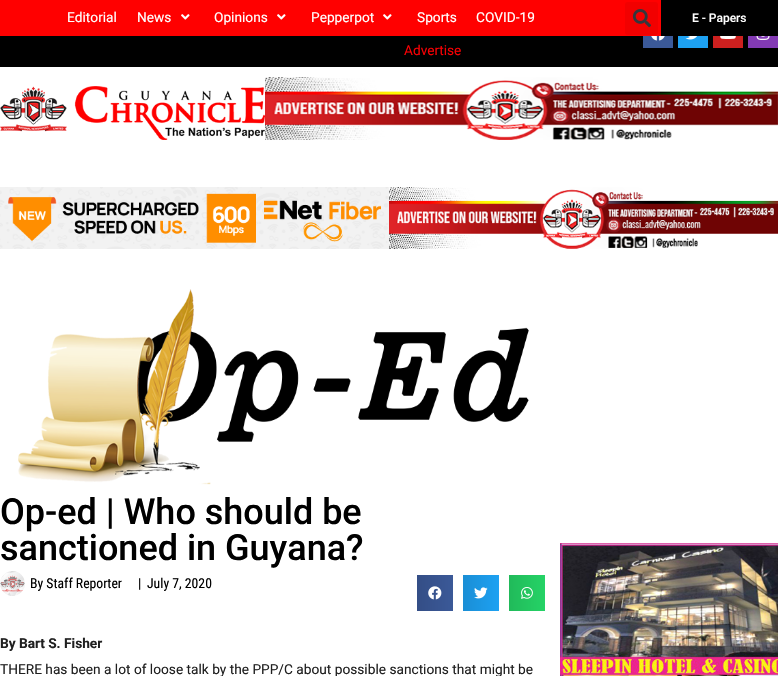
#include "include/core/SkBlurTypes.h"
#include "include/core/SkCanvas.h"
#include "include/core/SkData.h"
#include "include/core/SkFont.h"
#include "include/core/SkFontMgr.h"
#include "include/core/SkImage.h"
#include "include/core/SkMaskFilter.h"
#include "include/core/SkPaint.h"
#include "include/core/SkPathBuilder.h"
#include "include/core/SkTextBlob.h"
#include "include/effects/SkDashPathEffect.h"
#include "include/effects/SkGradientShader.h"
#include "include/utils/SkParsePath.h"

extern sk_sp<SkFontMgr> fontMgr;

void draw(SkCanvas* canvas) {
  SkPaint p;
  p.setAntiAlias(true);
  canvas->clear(SK_ColorWHITE);
  p.setColor(SkColorSetRGB(255, 0, 0));
  canvas->drawRect(SkRect::MakeLTRB(0, 0, 661, 36), p);
  canvas->drawImageRect(SkImages::DeferredFromEncodedData(SkData::MakeFromFileName("images/1.png")), SkRect::MakeLTRB(181, 14, 190, 20), SkSamplingOptions());
  canvas->drawImageRect(SkImages::DeferredFromEncodedData(SkData::MakeFromFileName("images/1.png")), SkRect::MakeLTRB(277, 14, 286, 20), SkSamplingOptions());
  canvas->drawImageRect(SkImages::DeferredFromEncodedData(SkData::MakeFromFileName("images/1.png")), SkRect::MakeLTRB(383, 14, 392, 20), SkSamplingOptions());
  p.setColor(SkColorSetRGB(242, 0, 0));
  canvas->drawRoundRect(SkRect::MakeLTRB(625, 2, 658, 35), 3, 3, p);
  canvas->drawImageRect(SkImages::DeferredFromEncodedData(SkData::MakeFromFileName("images/2.png")), SkRect::MakeLTRB(632, 9, 651, 28), SkSamplingOptions());
  p.setColor(SK_ColorBLACK);
  canvas->drawRect(SkRect::MakeLTRB(661, 0, 778, 36), p);
  canvas->drawRect(SkRect::MakeLTRB(0, 36, 778, 67), p);
  p.setColor(SkColorSetRGB(59, 89, 152));
  canvas->drawRect(SkRect::MakeLTRB(643, 36, 673, 48), p);
  canvas->drawImageRect(SkImages::DeferredFromEncodedData(SkData::MakeFromFileName("images/3.png")), SkRect::MakeLTRB(651, 36, 665, 41), SkSamplingOptions());
  p.setColor(SkColorSetRGB(29, 161, 242));
  canvas->drawRect(SkRect::MakeLTRB(678, 36, 708, 48), p);
  canvas->drawImageRect(SkImages::DeferredFromEncodedData(SkData::MakeFromFileName("images/4.png")), SkRect::MakeLTRB(685, 36, 697, 40), SkSamplingOptions());
  p.setColor(SkColorSetRGB(205, 32, 31));
  canvas->drawRect(SkRect::MakeLTRB(713, 36, 743, 48), p);
  canvas->drawImageRect(SkImages::DeferredFromEncodedData(SkData::MakeFromFileName("images/5.png")), SkRect::MakeLTRB(720, 36, 736, 39), SkSamplingOptions());
  p.setColor(SkColorSetRGB(131, 58, 180));
  canvas->drawRect(SkRect::MakeLTRB(748, 36, 778, 48), p);
  canvas->drawImageRect(SkImages::DeferredFromEncodedData(SkData::MakeFromFileName("images/6.png")), SkRect::MakeLTRB(756, 36, 770, 40), SkSamplingOptions());
  canvas->drawImageRect(SkImages::DeferredFromEncodedData(SkData::MakeFromFileName("images/7.png")), SkRect::MakeLTRB(0, 86, 265, 140), SkSamplingOptions());
  canvas->drawImageRect(SkImages::DeferredFromEncodedData(SkData::MakeFromFileName("images/8.png")), SkRect::MakeLTRB(265, 77, 778, 140), SkSamplingOptions());
  canvas->drawImageRect(SkImages::DeferredFromEncodedData(SkData::MakeFromFileName("images/9.png")), SkRect::MakeLTRB(0, 187, 389, 249), SkSamplingOptions());
  canvas->drawImageRect(SkImages::DeferredFromEncodedData(SkData::MakeFromFileName("images/10.png")), SkRect::MakeLTRB(389, 187, 778, 249), SkSamplingOptions());
  canvas->drawImageRect(SkImages::DeferredFromEncodedData(SkData::MakeFromFileName("images/11.png")), SkRect::MakeLTRB(18, 289, 529, 485), SkSamplingOptions());
  canvas->drawImageRect(SkImages::DeferredFromEncodedData(SkData::MakeFromFileName("images/12.png")), SkRect::MakeLTRB(0, 571, 25, 596), SkSamplingOptions());
  {
    const SkColor colors[] = {SkColorSetRGB(52, 78, 134), SkColorSetRGB(59, 89, 152)};
    const float stops[] = {0, 1};
    const SkPoint ends[] = {{417, 593}, {453, 593}};
    p.setShader(SkGradientShader::MakeLinear(ends, colors, stops, 2, SkTileMode::kClamp));
    p.setAlpha(255);
  }
  canvas->drawRect(SkRect::MakeLTRB(417, 575, 453, 611), p);
  canvas->drawImageRect(SkImages::DeferredFromEncodedData(SkData::MakeFromFileName("images/13.png")), SkRect::MakeLTRB(428, 586, 442, 600), SkSamplingOptions());
  {
    const SkColor colors[] = {SkColorSetRGB(26, 142, 213), SkColorSetRGB(29, 161, 242)};
    const float stops[] = {0, 1};
    const SkPoint ends[] = {{463, 593}, {499, 593}};
    p.setShader(SkGradientShader::MakeLinear(ends, colors, stops, 2, SkTileMode::kClamp));
    p.setAlpha(255);
  }
  canvas->drawRect(SkRect::MakeLTRB(463, 575, 499, 611), p);
  canvas->drawImageRect(SkImages::DeferredFromEncodedData(SkData::MakeFromFileName("images/14.png")), SkRect::MakeLTRB(474, 587, 488, 599), SkSamplingOptions());
  {
    const SkColor colors[] = {SkColorSetRGB(33, 186, 90), SkColorSetRGB(37, 211, 102)};
    const float stops[] = {0, 1};
    const SkPoint ends[] = {{509, 593}, {545, 593}};
    p.setShader(SkGradientShader::MakeLinear(ends, colors, stops, 2, SkTileMode::kClamp));
    p.setAlpha(255);
  }
  canvas->drawRect(SkRect::MakeLTRB(509, 575, 545, 611), p);
  canvas->drawImageRect(SkImages::DeferredFromEncodedData(SkData::MakeFromFileName("images/15.png")), SkRect::MakeLTRB(521, 587, 533, 599), SkSamplingOptions());
  canvas->drawImageRect(SkImages::DeferredFromEncodedData(SkData::MakeFromFileName("images/16.png")), SkRect::MakeLTRB(560, 543, 778, 676), SkSamplingOptions());
  SkFont font1(fontMgr->matchFamilyStyle("Roboto", SkFontStyle::Normal()), 13.7f);
  font1.setSubpixel(true);
  p.setShader(nullptr);
  p.setColor(SK_ColorWHITE);
  canvas->drawString("Editorial", 67, 22, font1, p);
  canvas->drawString("News", 137, 22, font1, p);
  canvas->drawString("Opinions", 214, 22, font1, p);
  canvas->drawString("Pepperpot", 311, 22, font1, p);
  canvas->drawString("Sports", 417, 22, font1, p);
  canvas->drawString("COVID-19", 476, 22, font1, p);
  SkFont font2(fontMgr->matchFamilyStyle("Roboto", SkFontStyle(500, SkFontStyle::kNormal_Width, SkFontStyle::kUpright_Slant)), 12);
  font2.setSubpixel(true);
  canvas->drawString("E - Papers", 692, 22, font2, p);
  p.setColor(SkColorSetRGB(246, 0, 3));
  canvas->drawString("Advertise", 404, 55, font1, p);
  SkFont font3(fontMgr->matchFamilyStyle("Roboto", SkFontStyle(500, SkFontStyle::kNormal_Width, SkFontStyle::kUpright_Slant)), 36);
  font3.setSubpixel(true);
  p.setColor(SK_ColorBLACK);
  canvas->drawString("Op-ed | Who should be", 0, 524, font3, p);
  canvas->drawString("sanctioned in Guyana?", 0, 560, font3, p);
  SkFont font4(fontMgr->matchFamilyStyle("Roboto Condensed", SkFontStyle::Normal()), 13.7f);
  font4.setSubpixel(true);
  canvas->drawString("By Staff Reporter", 30, 588, font4, p);
  canvas->drawString("|", 138, 588, font4, p);
  canvas->drawString("July 7, 2020", 147, 588, font4, p);
  SkFont font5(fontMgr->matchFamilyStyle("Roboto", SkFontStyle::Bold()), 13.7f);
  font5.setSubpixel(true);
  p.setColor(SkColorSetRGB(32, 32, 32));
  canvas->drawString("By Bart S. Fisher", 0, 648, font5, p);
  canvas->drawString("THERE has been a lot of loose talk by the PPP/C about possible sanctions that might be", 0, 674, font1, p);
}
